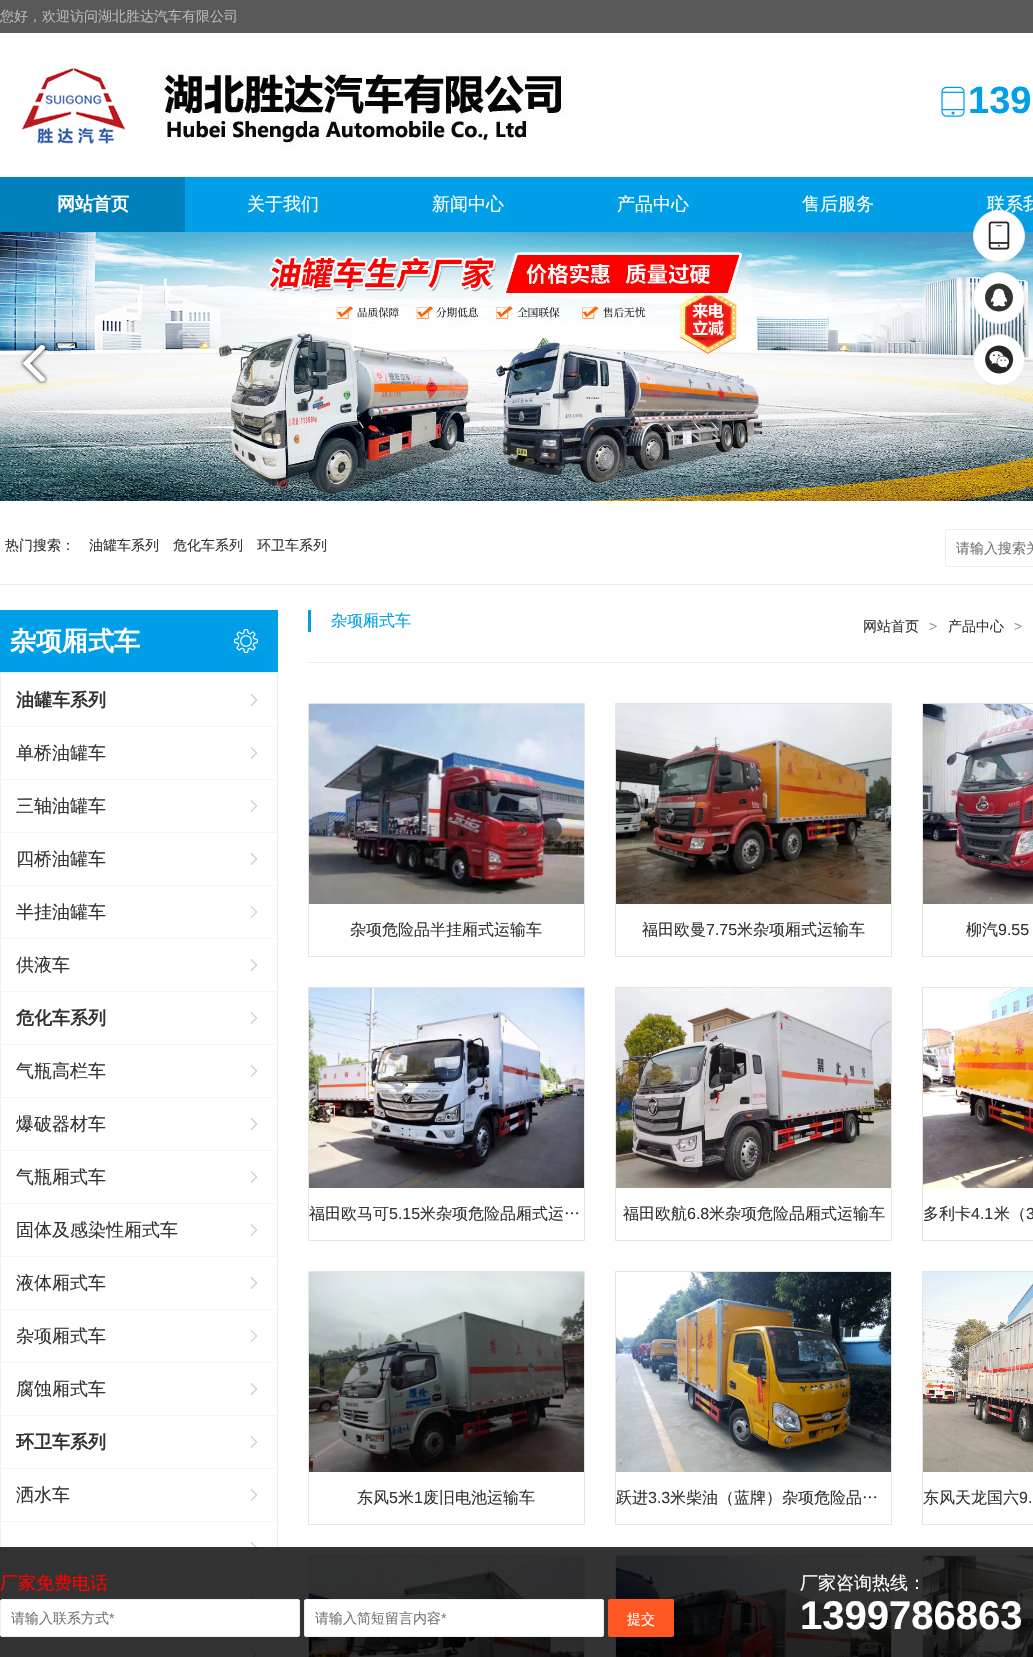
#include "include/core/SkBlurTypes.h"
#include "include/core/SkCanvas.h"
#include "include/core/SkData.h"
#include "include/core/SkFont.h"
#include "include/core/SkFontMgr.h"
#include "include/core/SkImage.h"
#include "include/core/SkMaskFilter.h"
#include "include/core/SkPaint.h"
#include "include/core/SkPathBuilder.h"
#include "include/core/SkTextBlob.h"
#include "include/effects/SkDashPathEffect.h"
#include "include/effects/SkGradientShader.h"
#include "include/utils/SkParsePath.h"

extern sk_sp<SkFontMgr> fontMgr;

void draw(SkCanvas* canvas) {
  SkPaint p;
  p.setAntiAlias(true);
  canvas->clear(SK_ColorWHITE);
  p.setColor(SkColorSetRGB(89, 89, 89));
  canvas->drawRect(SkRect::MakeLTRB(0, 0, 1033, 33), p);
  canvas->drawImageRect(SkImages::DeferredFromEncodedData(SkData::MakeFromFileName("images/1.png")), SkRect::MakeLTRB(21, 67, 568, 149), SkSamplingOptions());
  canvas->drawImageRect(SkImages::DeferredFromEncodedData(SkData::MakeFromFileName("images/2.png")), SkRect::MakeLTRB(941, 86, 965, 117), SkSamplingOptions());
  p.setColor(SkColorSetRGB(1, 159, 232));
  canvas->drawRect(SkRect::MakeLTRB(185, 177, 1033, 232), p);
  p.setColor(SkColorSetRGB(0, 129, 188));
  canvas->drawRect(SkRect::MakeLTRB(0, 177, 185, 232), p);
  canvas->drawImageRect(SkImages::DeferredFromEncodedData(SkData::MakeFromFileName("images/6.png")), SkRect::MakeLTRB(0, 232, 1033, 501), SkSamplingOptions());
  p.setColor(SK_ColorWHITE);
  canvas->drawCircle(999, 236, 25.5f, p);
  p.setStyle(SkPaint::kStroke_Style);
  p.setStrokeWidth(1);
  p.setColor(SkColorSetRGB(238, 238, 238));
  canvas->drawCircle(999, 236, 25.5f, p);
  canvas->drawImageRect(SkImages::DeferredFromEncodedData(SkData::MakeFromFileName("images/3.png")), SkRect::MakeLTRB(988, 221, 1010, 250), SkSamplingOptions());
  p.setStyle(SkPaint::kFill_Style);
  p.setColor(SK_ColorWHITE);
  canvas->drawCircle(999, 298, 25.5f, p);
  p.setStyle(SkPaint::kStroke_Style);
  p.setColor(SkColorSetRGB(238, 238, 238));
  canvas->drawCircle(999, 298, 25.5f, p);
  canvas->drawImageRect(SkImages::DeferredFromEncodedData(SkData::MakeFromFileName("images/4.png")), SkRect::MakeLTRB(985, 283, 1013, 312), SkSamplingOptions());
  canvas->drawImageRect(SkImages::DeferredFromEncodedData(SkData::MakeFromFileName("images/8.png")), SkRect::MakeLTRB(985, 381, 992, 385), SkSamplingOptions());
  p.setStyle(SkPaint::kFill_Style);
  p.setColor(SK_ColorWHITE);
  canvas->drawCircle(999, 360, 25.5f, p);
  p.setStyle(SkPaint::kStroke_Style);
  p.setColor(SkColorSetRGB(238, 238, 238));
  canvas->drawCircle(999, 360, 25.5f, p);
  canvas->drawImageRect(SkImages::DeferredFromEncodedData(SkData::MakeFromFileName("images/5.png")), SkRect::MakeLTRB(985, 345, 1014, 374), SkSamplingOptions());
  canvas->drawImageRect(SkImages::DeferredFromEncodedData(SkData::MakeFromFileName("images/7.png")), SkRect::MakeLTRB(19, 341, 48, 385), SkSamplingOptions());
  p.setStyle(SkPaint::kFill_Style);
  canvas->drawRect(SkRect::MakeLTRB(0, 584, 1033, 585), p);
  p.setStyle(SkPaint::kStroke_Style);
  canvas->drawRoundRect(SkRect::MakeLTRB(945.5f, 529.5f, 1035.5f, 566.5f), 1.5f, 1.5f, p);
  p.setStyle(SkPaint::kFill_Style);
  p.setColor(SkColorSetRGB(1, 159, 232));
  canvas->drawRect(SkRect::MakeLTRB(0, 610, 278, 672), p);
  canvas->drawImageRect(SkImages::DeferredFromEncodedData(SkData::MakeFromFileName("images/9.png")), SkRect::MakeLTRB(234, 629, 258, 653), SkSamplingOptions());
  p.setStyle(SkPaint::kStroke_Style);
  p.setColor(SkColorSetRGB(238, 238, 238));
  canvas->drawRect(SkRect::MakeLTRB(0.5f, 672.5f, 277.5f, 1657.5f), p);
  p.setStyle(SkPaint::kFill_Style);
  p.setColor(SkColorSetRGB(245, 245, 245));
  canvas->drawRect(SkRect::MakeLTRB(1, 673, 277, 674), p);
  canvas->drawImageRect(SkImages::DeferredFromEncodedData(SkData::MakeFromFileName("images/10.png")), SkRect::MakeLTRB(250, 694, 258, 706), SkSamplingOptions());
  canvas->drawRect(SkRect::MakeLTRB(1, 726, 277, 727), p);
  canvas->drawImageRect(SkImages::DeferredFromEncodedData(SkData::MakeFromFileName("images/10.png")), SkRect::MakeLTRB(250, 747, 258, 759), SkSamplingOptions());
  canvas->drawRect(SkRect::MakeLTRB(1, 779, 277, 780), p);
  canvas->drawImageRect(SkImages::DeferredFromEncodedData(SkData::MakeFromFileName("images/10.png")), SkRect::MakeLTRB(250, 800, 258, 812), SkSamplingOptions());
  canvas->drawRect(SkRect::MakeLTRB(1, 832, 277, 833), p);
  canvas->drawImageRect(SkImages::DeferredFromEncodedData(SkData::MakeFromFileName("images/10.png")), SkRect::MakeLTRB(250, 853, 258, 865), SkSamplingOptions());
  canvas->drawRect(SkRect::MakeLTRB(1, 885, 277, 886), p);
  canvas->drawImageRect(SkImages::DeferredFromEncodedData(SkData::MakeFromFileName("images/10.png")), SkRect::MakeLTRB(250, 906, 258, 918), SkSamplingOptions());
  canvas->drawRect(SkRect::MakeLTRB(1, 938, 277, 939), p);
  canvas->drawImageRect(SkImages::DeferredFromEncodedData(SkData::MakeFromFileName("images/10.png")), SkRect::MakeLTRB(250, 959, 258, 971), SkSamplingOptions());
  canvas->drawRect(SkRect::MakeLTRB(1, 991, 277, 992), p);
  canvas->drawImageRect(SkImages::DeferredFromEncodedData(SkData::MakeFromFileName("images/10.png")), SkRect::MakeLTRB(250, 1012, 258, 1024), SkSamplingOptions());
  canvas->drawRect(SkRect::MakeLTRB(1, 1044, 277, 1045), p);
  canvas->drawImageRect(SkImages::DeferredFromEncodedData(SkData::MakeFromFileName("images/10.png")), SkRect::MakeLTRB(250, 1065, 258, 1077), SkSamplingOptions());
  canvas->drawRect(SkRect::MakeLTRB(1, 1097, 277, 1098), p);
  canvas->drawImageRect(SkImages::DeferredFromEncodedData(SkData::MakeFromFileName("images/10.png")), SkRect::MakeLTRB(250, 1118, 258, 1130), SkSamplingOptions());
  canvas->drawRect(SkRect::MakeLTRB(1, 1150, 277, 1151), p);
  canvas->drawImageRect(SkImages::DeferredFromEncodedData(SkData::MakeFromFileName("images/10.png")), SkRect::MakeLTRB(250, 1171, 258, 1183), SkSamplingOptions());
  canvas->drawRect(SkRect::MakeLTRB(1, 1203, 277, 1204), p);
  canvas->drawImageRect(SkImages::DeferredFromEncodedData(SkData::MakeFromFileName("images/10.png")), SkRect::MakeLTRB(250, 1224, 258, 1236), SkSamplingOptions());
  canvas->drawRect(SkRect::MakeLTRB(1, 1256, 277, 1257), p);
  canvas->drawImageRect(SkImages::DeferredFromEncodedData(SkData::MakeFromFileName("images/10.png")), SkRect::MakeLTRB(250, 1277, 258, 1289), SkSamplingOptions());
  canvas->drawRect(SkRect::MakeLTRB(1, 1309, 277, 1310), p);
  canvas->drawImageRect(SkImages::DeferredFromEncodedData(SkData::MakeFromFileName("images/10.png")), SkRect::MakeLTRB(250, 1330, 258, 1342), SkSamplingOptions());
  canvas->drawRect(SkRect::MakeLTRB(1, 1362, 277, 1363), p);
  canvas->drawImageRect(SkImages::DeferredFromEncodedData(SkData::MakeFromFileName("images/10.png")), SkRect::MakeLTRB(250, 1383, 258, 1395), SkSamplingOptions());
  canvas->drawRect(SkRect::MakeLTRB(1, 1415, 277, 1416), p);
  canvas->drawImageRect(SkImages::DeferredFromEncodedData(SkData::MakeFromFileName("images/10.png")), SkRect::MakeLTRB(250, 1436, 258, 1448), SkSamplingOptions());
  canvas->drawRect(SkRect::MakeLTRB(1, 1468, 277, 1469), p);
  canvas->drawImageRect(SkImages::DeferredFromEncodedData(SkData::MakeFromFileName("images/10.png")), SkRect::MakeLTRB(250, 1489, 258, 1501), SkSamplingOptions());
  canvas->drawRect(SkRect::MakeLTRB(1, 1521, 277, 1522), p);
  canvas->drawImageRect(SkImages::DeferredFromEncodedData(SkData::MakeFromFileName("images/10.png")), SkRect::MakeLTRB(250, 1542, 258, 1554), SkSamplingOptions());
  canvas->drawRect(SkRect::MakeLTRB(1, 1574, 277, 1575), p);
  canvas->drawImageRect(SkImages::DeferredFromEncodedData(SkData::MakeFromFileName("images/11.png")), SkRect::MakeLTRB(250, 1595, 256, 1599), SkSamplingOptions());
  canvas->drawImageRect(SkImages::DeferredFromEncodedData(SkData::MakeFromFileName("images/12.png")), SkRect::MakeLTRB(250, 1648, 258, 1657), SkSamplingOptions());
  p.setColor(SkColorSetRGB(238, 238, 238));
  canvas->drawRect(SkRect::MakeLTRB(308, 662, 1033, 663), p);
  p.setColor(SkColorSetRGB(1, 159, 232));
  canvas->drawRect(SkRect::MakeLTRB(308, 610, 311, 632), p);
  p.setStyle(SkPaint::kStroke_Style);
  p.setColor(SkColorSetRGB(229, 229, 229));
  canvas->drawRect(SkRect::MakeLTRB(308.5f, 703.5f, 584.5f, 956.5f), p);
  canvas->drawImageRect(SkImages::DeferredFromEncodedData(SkData::MakeFromFileName("images/13.png")), SkRect::MakeLTRB(309, 704, 584, 904), SkSamplingOptions());
  canvas->drawRect(SkRect::MakeLTRB(615.5f, 703.5f, 891.5f, 956.5f), p);
  canvas->drawImageRect(SkImages::DeferredFromEncodedData(SkData::MakeFromFileName("images/14.png")), SkRect::MakeLTRB(616, 704, 891, 904), SkSamplingOptions());
  canvas->drawRect(SkRect::MakeLTRB(922.5f, 703.5f, 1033.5f, 956.5f), p);
  canvas->drawImageRect(SkImages::DeferredFromEncodedData(SkData::MakeFromFileName("images/15.png")), SkRect::MakeLTRB(923, 704, 1033, 904), SkSamplingOptions());
  canvas->drawRect(SkRect::MakeLTRB(308.5f, 987.5f, 584.5f, 1240.5f), p);
  canvas->drawImageRect(SkImages::DeferredFromEncodedData(SkData::MakeFromFileName("images/16.png")), SkRect::MakeLTRB(309, 988, 584, 1188), SkSamplingOptions());
  canvas->drawRect(SkRect::MakeLTRB(615.5f, 987.5f, 891.5f, 1240.5f), p);
  canvas->drawImageRect(SkImages::DeferredFromEncodedData(SkData::MakeFromFileName("images/17.png")), SkRect::MakeLTRB(616, 988, 891, 1188), SkSamplingOptions());
  canvas->drawRect(SkRect::MakeLTRB(922.5f, 987.5f, 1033.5f, 1240.5f), p);
  canvas->drawImageRect(SkImages::DeferredFromEncodedData(SkData::MakeFromFileName("images/18.png")), SkRect::MakeLTRB(923, 988, 1033, 1188), SkSamplingOptions());
  canvas->drawRect(SkRect::MakeLTRB(308.5f, 1271.5f, 584.5f, 1524.5f), p);
  canvas->drawImageRect(SkImages::DeferredFromEncodedData(SkData::MakeFromFileName("images/19.png")), SkRect::MakeLTRB(309, 1272, 584, 1472), SkSamplingOptions());
  canvas->drawRect(SkRect::MakeLTRB(615.5f, 1271.5f, 891.5f, 1524.5f), p);
  canvas->drawImageRect(SkImages::DeferredFromEncodedData(SkData::MakeFromFileName("images/20.png")), SkRect::MakeLTRB(616, 1272, 891, 1472), SkSamplingOptions());
  canvas->drawRect(SkRect::MakeLTRB(922.5f, 1271.5f, 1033.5f, 1524.5f), p);
  canvas->drawImageRect(SkImages::DeferredFromEncodedData(SkData::MakeFromFileName("images/21.png")), SkRect::MakeLTRB(923, 1272, 1033, 1472), SkSamplingOptions());
  canvas->drawRect(SkRect::MakeLTRB(308.5f, 1555.5f, 584.5f, 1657.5f), p);
  canvas->drawImageRect(SkImages::DeferredFromEncodedData(SkData::MakeFromFileName("images/22.png")), SkRect::MakeLTRB(309, 1556, 584, 1657), SkSamplingOptions());
  canvas->drawRect(SkRect::MakeLTRB(615.5f, 1555.5f, 891.5f, 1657.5f), p);
  canvas->drawImageRect(SkImages::DeferredFromEncodedData(SkData::MakeFromFileName("images/23.png")), SkRect::MakeLTRB(616, 1556, 891, 1657), SkSamplingOptions());
  canvas->drawRect(SkRect::MakeLTRB(922.5f, 1555.5f, 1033.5f, 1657.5f), p);
  canvas->drawImageRect(SkImages::DeferredFromEncodedData(SkData::MakeFromFileName("images/24.png")), SkRect::MakeLTRB(923, 1556, 1033, 1657), SkSamplingOptions());
  p.setStyle(SkPaint::kFill_Style);
  p.setColor(SkColorSetARGB(204, 0, 0, 0));
  canvas->drawRect(SkRect::MakeLTRB(0, 1547, 1033, 1657), p);
  p.setColor(SK_ColorWHITE);
  canvas->drawRoundRect(SkRect::MakeLTRB(0.5f, 1599.5f, 299.5f, 1636.5f), 1.5f, 1.5f, p);
  p.setStyle(SkPaint::kStroke_Style);
  p.setColor(SkColorSetRGB(238, 238, 238));
  canvas->drawRoundRect(SkRect::MakeLTRB(0.5f, 1599.5f, 299.5f, 1636.5f), 1.5f, 1.5f, p);
  p.setStyle(SkPaint::kFill_Style);
  p.setColor(SK_ColorWHITE);
  canvas->drawRoundRect(SkRect::MakeLTRB(304.5f, 1599.5f, 603.5f, 1636.5f), 1.5f, 1.5f, p);
  p.setStyle(SkPaint::kStroke_Style);
  p.setColor(SkColorSetRGB(238, 238, 238));
  canvas->drawRoundRect(SkRect::MakeLTRB(304.5f, 1599.5f, 603.5f, 1636.5f), 1.5f, 1.5f, p);
  p.setStyle(SkPaint::kFill_Style);
  p.setColor(SkColorSetRGB(255, 87, 34));
  canvas->drawRoundRect(SkRect::MakeLTRB(608, 1599, 674, 1637), 2, 2, p);
  SkFont font1(fontMgr->matchFamilyStyle("WenQuanYi Zen Hei", SkFontStyle(500, SkFontStyle::kNormal_Width, SkFontStyle::kUpright_Slant)), 14);
  font1.setSubpixel(true);
  p.setColor(SkColorSetRGB(184, 184, 184));
  canvas->drawString("您好，欢迎访问湖北胜达汽车有限公司", 0, 21, font1, p);
  SkFont font2(fontMgr->matchFamilyStyle("Liberation Sans", SkFontStyle::Bold()), 38);
  font2.setSubpixel(true);
  p.setColor(SkColorSetRGB(1, 159, 232));
  canvas->drawString("139", 968, 113, font2, p);
  SkFont font3(fontMgr->matchFamilyStyle("WenQuanYi Zen Hei", SkFontStyle::Bold()), 18);
  font3.setSubpixel(true);
  p.setColor(SK_ColorWHITE);
  canvas->drawString("网站首页", 57, 210, font3, p);
  SkFont font4(fontMgr->matchFamilyStyle("WenQuanYi Zen Hei", SkFontStyle(500, SkFontStyle::kNormal_Width, SkFontStyle::kUpright_Slant)), 18);
  font4.setSubpixel(true);
  canvas->drawString("关于我们", 247, 210, font4, p);
  canvas->drawString("新闻中心", 432, 210, font4, p);
  canvas->drawString("产品中心", 617, 210, font4, p);
  canvas->drawString("售后服务", 802, 210, font4, p);
  canvas->drawString("联系我", 987, 210, font4, p);
  p.setColor(SkColorSetRGB(51, 51, 51));
  canvas->drawString("热门搜索：", 5, 550, font1, p);
  canvas->drawString("油罐车系列", 89, 550, font1, p);
  canvas->drawString("危化车系列", 173, 550, font1, p);
  canvas->drawString("环卫车系列", 257, 550, font1, p);
  p.setColor(SkColorSetRGB(117, 117, 117));
  canvas->drawString("请输入搜索关", 956, 553, font1, p);
  SkFont font5(fontMgr->matchFamilyStyle("WenQuanYi Zen Hei", SkFontStyle::Bold()), 26);
  font5.setSubpixel(true);
  p.setColor(SK_ColorWHITE);
  canvas->drawString("杂项厢式车", 10, 650, font5, p);
  p.setColor(SkColorSetRGB(51, 51, 51));
  canvas->drawString("油罐车系列", 16, 706, font3, p);
  canvas->drawString("单桥油罐车", 16, 759, font4, p);
  canvas->drawString("三轴油罐车", 16, 812, font4, p);
  canvas->drawString("四桥油罐车", 16, 865, font4, p);
  canvas->drawString("半挂油罐车", 16, 918, font4, p);
  canvas->drawString("供液车", 16, 971, font4, p);
  canvas->drawString("危化车系列", 16, 1024, font3, p);
  canvas->drawString("气瓶高栏车", 16, 1077, font4, p);
  canvas->drawString("爆破器材车", 16, 1130, font4, p);
  canvas->drawString("气瓶厢式车", 16, 1183, font4, p);
  canvas->drawString("固体及感染性厢式车", 16, 1236, font4, p);
  canvas->drawString("液体厢式车", 16, 1289, font4, p);
  canvas->drawString("杂项厢式车", 16, 1342, font4, p);
  canvas->drawString("腐蚀厢式车", 16, 1395, font4, p);
  canvas->drawString("环卫车系列", 16, 1448, font3, p);
  canvas->drawString("洒水车", 16, 1501, font4, p);
  SkFont font6(fontMgr->matchFamilyStyle("WenQuanYi Zen Hei", SkFontStyle(500, SkFontStyle::kNormal_Width, SkFontStyle::kUpright_Slant)), 16);
  font6.setSubpixel(true);
  p.setColor(SkColorSetRGB(1, 159, 232));
  canvas->drawString("杂项厢式车", 331, 626, font6, p);
  p.setColor(SkColorSetRGB(51, 51, 51));
  canvas->drawString("网站首页", 863, 631, font1, p);
  SkFont font7(fontMgr->matchFamilyStyle("Liberation Sans", SkFontStyle::Normal()), 14);
  font7.setSubpixel(true);
  p.setColor(SkColorSetRGB(153, 153, 153));
  canvas->drawString(">", 929, 631, font7, p);
  p.setColor(SkColorSetRGB(51, 51, 51));
  canvas->drawString("产品中心", 948, 631, font1, p);
  p.setColor(SkColorSetRGB(153, 153, 153));
  canvas->drawString(">", 1014, 631, font7, p);
  p.setColor(SkColorSetRGB(51, 51, 51));
  canvas->drawString("杂项危险品半挂厢式运输车", 350, 935, font6, p);
  canvas->drawString("福田欧曼", 642, 935, font6, p);
  SkFont font8(fontMgr->matchFamilyStyle("Liberation Sans", SkFontStyle::Normal()), 16);
  font8.setSubpixel(true);
  canvas->drawString("7.75", 706, 935, font8, p);
  canvas->drawString("米杂项厢式运输车", 737, 935, font6, p);
  canvas->drawString("柳汽", 966, 935, font6, p);
  canvas->drawString("9.55", 998, 935, font8, p);
  canvas->drawString("福田欧马可", 309, 1219, font6, p);
  canvas->drawString("5.15", 389, 1219, font8, p);
  canvas->drawString("米杂项危险品厢式运…", 420, 1219, font6, p);
  canvas->drawString("福田欧航", 623, 1219, font6, p);
  canvas->drawString("6.8", 687, 1219, font8, p);
  canvas->drawString("米杂项危险品厢式运输车", 709, 1219, font6, p);
  canvas->drawString("多利卡", 923, 1219, font6, p);
  canvas->drawString("4.1", 971, 1219, font8, p);
  canvas->drawString("米（", 994, 1219, font6, p);
  canvas->drawString("3", 1026, 1219, font8, p);
  canvas->drawString("东风", 357, 1503, font6, p);
  canvas->drawString("5", 389, 1503, font8, p);
  canvas->drawString("米", 398, 1503, font6, p);
  canvas->drawString("1", 414, 1503, font8, p);
  canvas->drawString("废旧电池运输车", 423, 1503, font6, p);
  canvas->drawString("跃进", 616, 1503, font6, p);
  canvas->drawString("3.3", 648, 1503, font8, p);
  canvas->drawString("米柴油（蓝牌）杂项危险品…", 670, 1503, font6, p);
  canvas->drawString("东风天龙国六", 923, 1503, font6, p);
  canvas->drawString("9.", 1019, 1503, font8, p);
  p.setColor(SkColorSetRGB(255, 0, 0));
  canvas->drawString("厂家免费电话", 0, 1589, font4, p);
  p.setColor(SkColorSetRGB(117, 117, 117));
  canvas->drawString("请输入联系方式", 11, 1623, font1, p);
  canvas->drawString("*", 109, 1623, font7, p);
  canvas->drawString("请输入简短留言内容", 315, 1623, font1, p);
  canvas->drawString("*", 441, 1623, font7, p);
  p.setColor(SK_ColorWHITE);
  canvas->drawString("提交", 627, 1624, font1, p);
  canvas->drawString("厂家咨询热线：", 800, 1589, font4, p);
  SkFont font9(fontMgr->matchFamilyStyle("Liberation Sans", SkFontStyle::Bold()), 40);
  font9.setSubpixel(true);
  canvas->drawString("1399786863", 800, 1629, font9, p);
}
